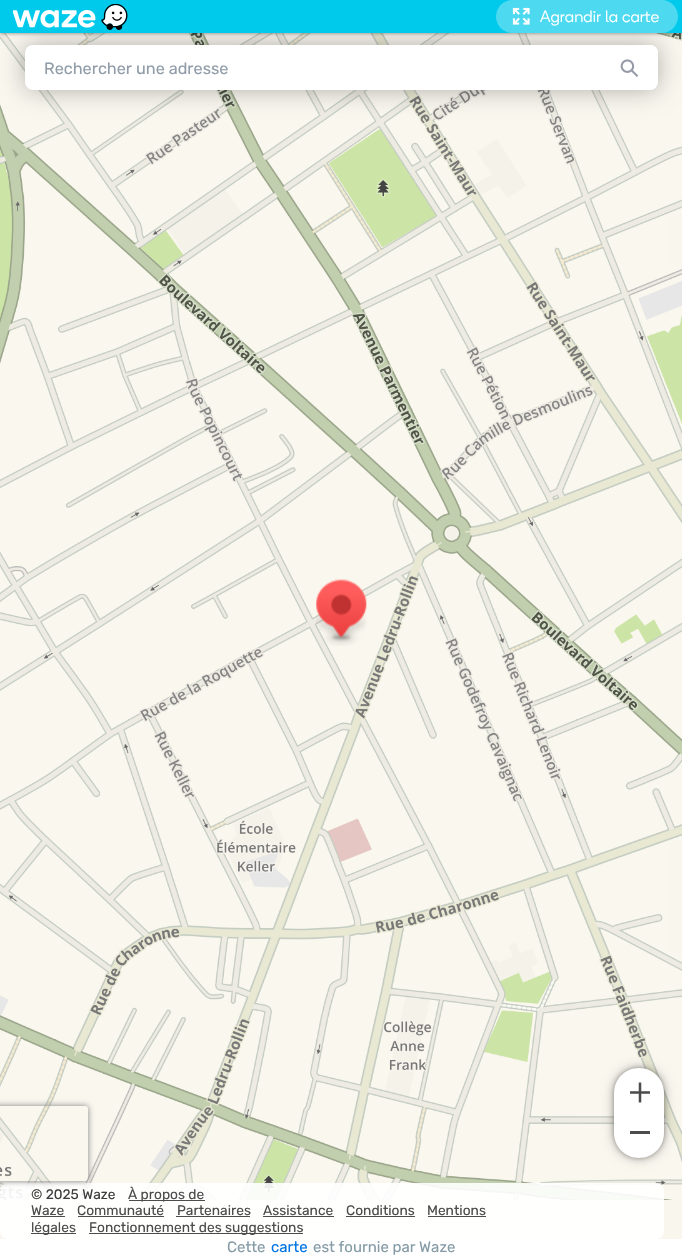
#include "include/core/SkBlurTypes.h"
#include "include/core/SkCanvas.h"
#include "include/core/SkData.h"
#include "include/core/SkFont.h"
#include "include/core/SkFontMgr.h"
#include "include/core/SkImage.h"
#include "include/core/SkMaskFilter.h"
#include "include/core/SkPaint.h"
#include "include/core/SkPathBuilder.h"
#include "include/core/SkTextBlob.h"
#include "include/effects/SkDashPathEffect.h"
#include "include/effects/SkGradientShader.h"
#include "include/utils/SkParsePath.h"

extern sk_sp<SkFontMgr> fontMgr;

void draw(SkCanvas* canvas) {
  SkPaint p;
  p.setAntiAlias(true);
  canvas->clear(SK_ColorWHITE);
  p.setColor(SkColorSetRGB(249, 246, 237));
  canvas->drawRect(SkRect::MakeLTRB(0, 213, 682, 1239), p);
  canvas->drawImageRect(SkImages::DeferredFromEncodedData(SkData::MakeFromFileName("images/3.png")), SkRect::MakeLTRB(0, 33, 30, 240), SkSamplingOptions());
  canvas->drawImageRect(SkImages::DeferredFromEncodedData(SkData::MakeFromFileName("images/4.png")), SkRect::MakeLTRB(30, 33, 350, 240), SkSamplingOptions());
  canvas->drawImageRect(SkImages::DeferredFromEncodedData(SkData::MakeFromFileName("images/5.png")), SkRect::MakeLTRB(350, 33, 670, 240), SkSamplingOptions());
  canvas->drawImageRect(SkImages::DeferredFromEncodedData(SkData::MakeFromFileName("images/6.png")), SkRect::MakeLTRB(670, 33, 682, 213), SkSamplingOptions());
  p.setColor(SkColorSetARGB(128, 0, 0, 0));
  p.setMaskFilter(SkMaskFilter::MakeBlur(kNormal_SkBlurStyle, 2));
  canvas->drawRect(SkRect::MakeLTRB(0, 0, 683, 33), p);
  p.setMaskFilter(nullptr);
  p.setColor(SkColorSetARGB(77, 0, 0, 0));
  p.setMaskFilter(SkMaskFilter::MakeBlur(kNormal_SkBlurStyle, 12.5f));
  canvas->drawRoundRect(SkRect::MakeLTRB(25, 45, 658, 90), 8, 8, p);
  p.setMaskFilter(nullptr);
  p.setColor(SkColorSetRGB(0, 202, 235));
  canvas->drawRect(SkRect::MakeLTRB(0, 0, 682, 33), p);
  canvas->drawImageRect(SkImages::DeferredFromEncodedData(SkData::MakeFromFileName("images/1.png")), SkRect::MakeLTRB(13, 4, 128, 30), SkSamplingOptions());
  p.setColor(SkColorSetRGB(77, 218, 241));
  canvas->drawRoundRect(SkRect::MakeLTRB(496, 0, 678, 33), 16.5f, 16.5f, p);
  canvas->drawImageRect(SkImages::DeferredFromEncodedData(SkData::MakeFromFileName("images/2.png")), SkRect::MakeLTRB(512, 7, 530, 25), SkSamplingOptions());
  canvas->drawImageRect(SkImages::DeferredFromEncodedData(SkData::MakeFromFileName("images/7.png")), SkRect::MakeLTRB(0, 240, 30, 560), SkSamplingOptions());
  canvas->drawImageRect(SkImages::DeferredFromEncodedData(SkData::MakeFromFileName("images/8.png")), SkRect::MakeLTRB(30, 240, 350, 560), SkSamplingOptions());
  canvas->drawImageRect(SkImages::DeferredFromEncodedData(SkData::MakeFromFileName("images/9.png")), SkRect::MakeLTRB(350, 240, 670, 560), SkSamplingOptions());
  canvas->drawImageRect(SkImages::DeferredFromEncodedData(SkData::MakeFromFileName("images/10.png")), SkRect::MakeLTRB(670, 269, 682, 560), SkSamplingOptions());
  canvas->drawImageRect(SkImages::DeferredFromEncodedData(SkData::MakeFromFileName("images/11.png")), SkRect::MakeLTRB(0, 560, 30, 880), SkSamplingOptions());
  canvas->drawImageRect(SkImages::DeferredFromEncodedData(SkData::MakeFromFileName("images/12.png")), SkRect::MakeLTRB(30, 560, 350, 880), SkSamplingOptions());
  canvas->drawImageRect(SkImages::DeferredFromEncodedData(SkData::MakeFromFileName("images/13.png")), SkRect::MakeLTRB(350, 560, 670, 880), SkSamplingOptions());
  canvas->drawImageRect(SkImages::DeferredFromEncodedData(SkData::MakeFromFileName("images/14.png")), SkRect::MakeLTRB(670, 560, 682, 840), SkSamplingOptions());
  canvas->drawImageRect(SkImages::DeferredFromEncodedData(SkData::MakeFromFileName("images/15.png")), SkRect::MakeLTRB(0, 880, 30, 1200), SkSamplingOptions());
  canvas->drawImageRect(SkImages::DeferredFromEncodedData(SkData::MakeFromFileName("images/16.png")), SkRect::MakeLTRB(30, 880, 350, 1200), SkSamplingOptions());
  canvas->drawImageRect(SkImages::DeferredFromEncodedData(SkData::MakeFromFileName("images/17.png")), SkRect::MakeLTRB(350, 880, 670, 1200), SkSamplingOptions());
  canvas->drawImageRect(SkImages::DeferredFromEncodedData(SkData::MakeFromFileName("images/18.png")), SkRect::MakeLTRB(670, 956, 682, 1200), SkSamplingOptions());
  canvas->drawImageRect(SkImages::DeferredFromEncodedData(SkData::MakeFromFileName("images/19.png")), SkRect::MakeLTRB(316, 579, 367, 646), SkSamplingOptions());
  p.setColor(SK_ColorWHITE);
  canvas->drawRoundRect(SkRect::MakeLTRB(25, 45, 658, 90), 8, 8, p);
  {
    const SkColor colors[] = {SkColorSetARGB(0, 255, 255, 255), SK_ColorWHITE, SK_ColorWHITE};
    const float stops[] = {0, 0.25f, 1};
    const SkPoint ends[] = {{595, 66}, {658, 66}};
    p.setShader(SkGradientShader::MakeLinear(ends, colors, stops, 3, SkTileMode::kClamp));
    p.setAlpha(255);
  }
  canvas->drawRoundRect(SkRect::MakeLTRB(595, 45, 658, 88), 8, 8, p);
  canvas->drawImageRect(SkImages::DeferredFromEncodedData(SkData::MakeFromFileName("images/20.png")), SkRect::MakeLTRB(620, 59, 639, 77), SkSamplingOptions());
  p.setShader(nullptr);
  p.setColor(SkColorSetARGB(77, 0, 0, 0));
  p.setMaskFilter(SkMaskFilter::MakeBlur(kNormal_SkBlurStyle, 6));
  canvas->drawRoundRect(SkRect::MakeLTRB(614, 1068, 664, 1158), 25, 25, p);
  p.setMaskFilter(nullptr);
  p.setMaskFilter(SkMaskFilter::MakeBlur(kNormal_SkBlurStyle, 2.5f));
  canvas->drawRoundRect(SkRect::MakeLTRB(614, 1068, 664, 1158), 25, 25, p);
  p.setMaskFilter(nullptr);
  p.setColor(SK_ColorWHITE);
  canvas->drawPath(SkPathBuilder().moveTo(639, 1068).cubicTo(653, 1068, 664, 1079, 664, 1093).lineTo(664, 1113).lineTo(614, 1113).lineTo(614, 1093).cubicTo(614, 1079, 625, 1068, 639, 1068).close().detach(), p);
  canvas->drawImageRect(SkImages::DeferredFromEncodedData(SkData::MakeFromFileName("images/21.png")), SkRect::MakeLTRB(630, 1082, 650, 1103), SkSamplingOptions());
  canvas->drawPath(SkPathBuilder().moveTo(614, 1113).lineTo(664, 1113).lineTo(664, 1133).cubicTo(664, 1147, 653, 1158, 639, 1158).cubicTo(625, 1158, 614, 1147, 614, 1133).close().detach(), p);
  p.setColor(SkColorSetRGB(76, 76, 76));
  canvas->drawRect(SkRect::MakeLTRB(630, 1131, 650, 1134), p);
  p.setColor(SkColorSetARGB(230, 255, 255, 255));
  canvas->drawRoundRect(SkRect::MakeLTRB(0, 1183, 664, 1239), 8, 8, p);
  p.setColor(SkColorSetRGB(76, 76, 76));
  canvas->drawRect(SkRect::MakeLTRB(129, 1200, 205, 1201), p);
  canvas->drawRect(SkRect::MakeLTRB(31, 1216, 65, 1217), p);
  canvas->drawRect(SkRect::MakeLTRB(78, 1216, 164, 1217), p);
  canvas->drawRect(SkRect::MakeLTRB(176, 1216, 250, 1217), p);
  canvas->drawRect(SkRect::MakeLTRB(263, 1216, 334, 1217), p);
  canvas->drawRect(SkRect::MakeLTRB(346, 1216, 415, 1217), p);
  canvas->drawRect(SkRect::MakeLTRB(428, 1216, 486, 1217), p);
  canvas->drawRect(SkRect::MakeLTRB(31, 1233, 76, 1234), p);
  canvas->drawRect(SkRect::MakeLTRB(89, 1233, 303, 1234), p);
  canvas->save();
  canvas->clipPath(SkPathBuilder(SkPathFillType::kEvenOdd).moveTo(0, 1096).lineTo(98, 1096).lineTo(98, 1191).lineTo(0, 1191).close().moveTo(-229.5f, 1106).lineTo(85.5f, 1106).cubicTo(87, 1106, 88, 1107, 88, 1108.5f).lineTo(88, 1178.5f).cubicTo(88, 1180, 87, 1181, 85.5f, 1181).lineTo(-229.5f, 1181).cubicTo(-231, 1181, -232, 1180, -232, 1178.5f).lineTo(-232, 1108.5f).cubicTo(-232, 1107, -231, 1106, -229.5f, 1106).close().detach(), true);
  p.setColor(SkColorSetRGB(128, 128, 128));
  p.setMaskFilter(SkMaskFilter::MakeBlur(kNormal_SkBlurStyle, 3));
  canvas->drawRoundRect(SkRect::MakeLTRB(-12, 1106, 88, 1181), 2.5f, 2.5f, p);
  p.setMaskFilter(nullptr);
  canvas->restore();
  SkFont font1(fontMgr->matchFamilyStyle("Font", SkFontStyle(300, SkFontStyle::kNormal_Width, SkFontStyle::kUpright_Slant)), 16.25f);
  font1.setSubpixel(true);
  p.setColor(SK_ColorWHITE);
  canvas->drawString("Agrandir la carte", 540, 22, font1, p);
  SkFont font2(fontMgr->matchFamilyStyle("Rubik", SkFontStyle::Normal()), 16.25f);
  font2.setSubpixel(true);
  p.setColor(SkColorSetRGB(145, 157, 169));
  canvas->drawString("Rechercher une adresse", 44, 74, font2, p);
  SkFont font3(fontMgr->matchFamilyStyle("Rubik", SkFontStyle::Normal()), 13.75f);
  font3.setSubpixel(true);
  p.setColor(SkColorSetRGB(61, 61, 61));
  canvas->drawString("© 2025 Waze", 31, 1199, font3, p);
  p.setColor(SkColorSetRGB(76, 76, 76));
  canvas->drawString("À propos de", 128, 1199, font3, p);
  canvas->drawString("Waze", 31, 1215, font3, p);
  canvas->drawString("Communauté", 77, 1215, font3, p);
  canvas->drawString("Partenaires", 177, 1215, font3, p);
  canvas->drawString("Assistance", 263, 1215, font3, p);
  canvas->drawString("Conditions", 346, 1215, font3, p);
  canvas->drawString("Mentions", 427, 1215, font3, p);
  canvas->drawString("légales", 31, 1232, font3, p);
  canvas->drawString("Fonctionnement des suggestions", 89, 1232, font3, p);
  SkFont font4(fontMgr->matchFamilyStyle("Rubik", SkFontStyle::Normal()), 15);
  font4.setSubpixel(true);
  p.setColor(SkColorSetRGB(133, 155, 166));
  canvas->drawString("Cette", 227, 1252, font4, p);
  p.setColor(SkColorSetRGB(0, 117, 227));
  canvas->drawString("carte", 271, 1252, font4, p);
  p.setColor(SkColorSetRGB(133, 155, 166));
  canvas->drawString("est fournie par Waze", 313, 1252, font4, p);
}
